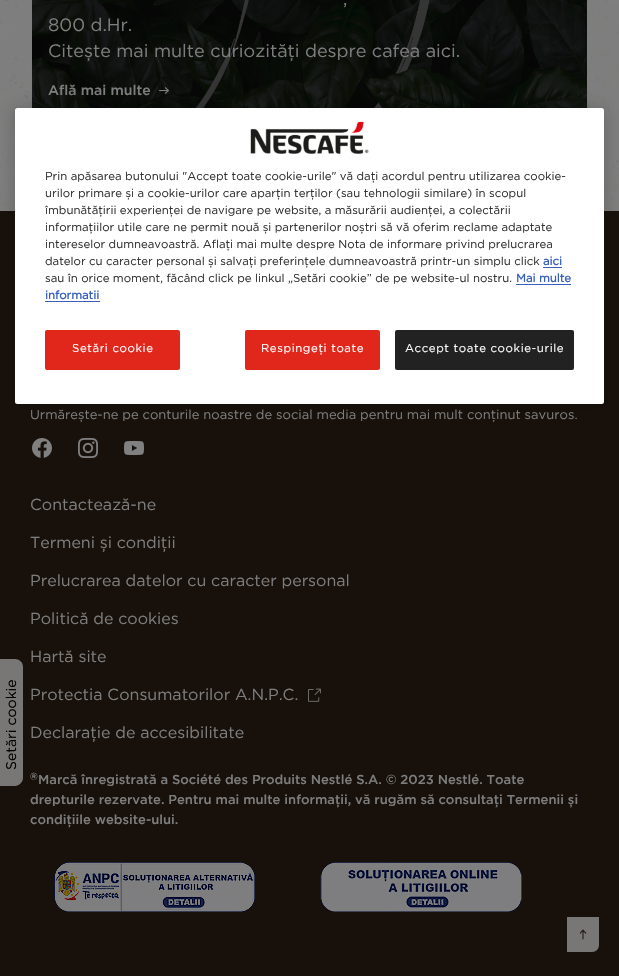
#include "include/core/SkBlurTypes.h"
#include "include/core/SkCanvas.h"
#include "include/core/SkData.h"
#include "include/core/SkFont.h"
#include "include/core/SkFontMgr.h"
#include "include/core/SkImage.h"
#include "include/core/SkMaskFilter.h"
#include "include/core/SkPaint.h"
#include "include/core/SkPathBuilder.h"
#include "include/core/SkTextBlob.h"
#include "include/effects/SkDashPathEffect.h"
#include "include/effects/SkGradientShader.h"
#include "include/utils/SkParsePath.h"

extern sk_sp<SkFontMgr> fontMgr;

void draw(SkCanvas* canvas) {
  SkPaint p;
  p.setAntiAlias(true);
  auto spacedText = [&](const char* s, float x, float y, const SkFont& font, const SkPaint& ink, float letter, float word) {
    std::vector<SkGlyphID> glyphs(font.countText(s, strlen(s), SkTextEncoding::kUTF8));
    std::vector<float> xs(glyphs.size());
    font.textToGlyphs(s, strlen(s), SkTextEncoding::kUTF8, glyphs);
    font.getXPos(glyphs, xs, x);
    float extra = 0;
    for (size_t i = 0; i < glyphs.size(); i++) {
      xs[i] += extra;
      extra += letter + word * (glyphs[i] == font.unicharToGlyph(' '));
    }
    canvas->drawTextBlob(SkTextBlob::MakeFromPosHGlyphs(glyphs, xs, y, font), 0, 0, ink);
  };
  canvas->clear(SK_ColorWHITE);
  canvas->drawImageRect(SkImages::DeferredFromEncodedData(SkData::MakeFromFileName("images/1.png")), SkRect::MakeLTRB(0, 0, 619, 211), SkSamplingOptions());
  canvas->drawImageRect(SkImages::DeferredFromEncodedData(SkData::MakeFromFileName("images/2.png")), SkRect::MakeLTRB(32, 0, 587, 108), SkSamplingOptions());
  {
    const SkColor colors[] = {SkColorSetARGB(0, 0, 0, 0), SkColorSetARGB(150, 0, 0, 0)};
    const float stops[] = {0.26f, 0.56f};
    const SkPoint ends[] = {{310, -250}, {310, 152}};
    p.setShader(SkGradientShader::MakeLinear(ends, colors, stops, 2, SkTileMode::kClamp));
    p.setAlpha(255);
  }
  canvas->drawRect(SkRect::MakeLTRB(32, 0, 587, 108), p);
  canvas->drawImageRect(SkImages::DeferredFromEncodedData(SkData::MakeFromFileName("images/3.png")), SkRect::MakeLTRB(159, 87, 169, 94), SkSamplingOptions());
  p.setShader(nullptr);
  p.setColor(SkColorSetRGB(24, 17, 11));
  canvas->drawRect(SkRect::MakeLTRB(0, 211, 619, 976), p);
  p.setColor(SkColorSetRGB(121, 119, 117));
  canvas->drawPath(SkPathBuilder().moveTo(15, 786).lineTo(0, 786).lineTo(0, 659).lineTo(15, 659).cubicTo(19, 659, 23, 662, 23, 667).lineTo(23, 778).cubicTo(23, 782, 19, 786, 15, 786).close().detach(), p);
  canvas->drawImageRect(SkImages::DeferredFromEncodedData(SkData::MakeFromFileName("images/4.png")), SkRect::MakeLTRB(32, 438, 52, 458), SkSamplingOptions());
  canvas->drawImageRect(SkImages::DeferredFromEncodedData(SkData::MakeFromFileName("images/5.png")), SkRect::MakeLTRB(78, 438, 98, 458), SkSamplingOptions());
  canvas->drawImageRect(SkImages::DeferredFromEncodedData(SkData::MakeFromFileName("images/6.png")), SkRect::MakeLTRB(124, 440, 144, 456), SkSamplingOptions());
  canvas->drawImageRect(SkImages::DeferredFromEncodedData(SkData::MakeFromFileName("images/7.png")), SkRect::MakeLTRB(308, 688, 321, 702), SkSamplingOptions());
  canvas->drawImageRect(SkImages::DeferredFromEncodedData(SkData::MakeFromFileName("images/8.png")), SkRect::MakeLTRB(54, 862, 255, 912), SkSamplingOptions());
  canvas->drawImageRect(SkImages::DeferredFromEncodedData(SkData::MakeFromFileName("images/9.png")), SkRect::MakeLTRB(320, 862, 522, 912), SkSamplingOptions());
  canvas->drawPath(SkPathBuilder().moveTo(567, 917).lineTo(599, 917).lineTo(599, 945).cubicTo(599, 949, 596, 952, 592, 952).lineTo(567, 952).close().detach(), p);
  canvas->drawImageRect(SkImages::DeferredFromEncodedData(SkData::MakeFromFileName("images/10.png")), SkRect::MakeLTRB(579, 929, 587, 940), SkSamplingOptions());
  p.setColor(SkColorSetARGB(51, 0, 0, 0));
  p.setMaskFilter(SkMaskFilter::MakeBlur(kNormal_SkBlurStyle, 9));
  canvas->drawRoundRect(SkRect::MakeLTRB(15, 108, 604, 404), 2.5f, 2.5f, p);
  p.setMaskFilter(nullptr);
  p.setColor(SK_ColorWHITE);
  canvas->drawRoundRect(SkRect::MakeLTRB(15, 108, 604, 404), 2.5f, 2.5f, p);
  canvas->drawImageRect(SkImages::DeferredFromEncodedData(SkData::MakeFromFileName("images/11.png")), SkRect::MakeLTRB(250, 121, 369, 154), SkSamplingOptions());
  p.setColor(SkColorSetRGB(56, 96, 190));
  canvas->drawRect(SkRect::MakeLTRB(543, 267, 562, 268), p);
  canvas->drawRect(SkRect::MakeLTRB(516, 284, 571, 285), p);
  canvas->drawRect(SkRect::MakeLTRB(45, 301, 100, 302), p);
  p.setColor(SkColorSetRGB(225, 38, 28));
  canvas->drawRoundRect(SkRect::MakeLTRB(45, 330, 180, 370), 2, 2, p);
  canvas->drawRoundRect(SkRect::MakeLTRB(245, 330, 380, 370), 2, 2, p);
  p.setColor(SkColorSetRGB(34, 34, 34));
  canvas->drawRoundRect(SkRect::MakeLTRB(395, 330, 574, 370), 2, 2, p);
  SkFont font1(fontMgr->matchFamilyStyle("Gotham", SkFontStyle::Normal()), 18);
  font1.setSubpixel(true);
  p.setColor(SkColorSetRGB(125, 125, 125));
  canvas->drawString(",", 343, 5, font1, p);
  canvas->drawString("800 d.Hr.", 48, 31, font1, p);
  canvas->drawString("Citește mai multe curiozități despre cafea aici.", 48, 57, font1, p);
  SkFont font2(fontMgr->matchFamilyStyle("Gotham", SkFontStyle(500, SkFontStyle::kNormal_Width, SkFontStyle::kUpright_Slant)), 14);
  font2.setSubpixel(true);
  canvas->drawString("Află mai multe", 48, 95, font2, p);
  SkFont font3(fontMgr->matchFamilyStyle("Gotham", SkFontStyle::Normal()), 14);
  font3.setSubpixel(true);
  p.setColor(SK_ColorBLACK);
  canvas->save();
  canvas->rotate(-90, 16, 770);
  canvas->drawString("Setări cookie", 16, 770, font3, p);
  canvas->restore();
  SkFont font4(fontMgr->matchFamilyStyle("Gotham", SkFontStyle::Normal()), 13);
  font4.setSubpixel(true);
  p.setColor(SkColorSetRGB(125, 125, 125));
  canvas->drawString("Urmărește-ne pe conturile noastre de social media pentru mai mult conținut savuros.", 30, 419, font4, p);
  SkFont font5(fontMgr->matchFamilyStyle("Gotham", SkFontStyle::Normal()), 16);
  font5.setSubpixel(true);
  canvas->drawString("Contactează-ne", 30, 510, font5, p);
  canvas->drawString("Termeni și condiții", 30, 548, font5, p);
  canvas->drawString("Prelucrarea datelor cu caracter personal", 30, 586, font5, p);
  canvas->drawString("Politică de cookies", 30, 624, font5, p);
  canvas->drawString("Hartă site", 30, 662, font5, p);
  canvas->drawString("Protectia Consumatorilor A.N.P.C.", 30, 700, font5, p);
  canvas->drawString("Declarație de accesibilitate", 30, 738, font5, p);
  SkFont font6(fontMgr->matchFamilyStyle("Gotham", SkFontStyle(500, SkFontStyle::kNormal_Width, SkFontStyle::kUpright_Slant)), 20);
  font6.setSubpixel(true);
  canvas->drawString("®", 30, 787, font6, p);
  SkFont font7(fontMgr->matchFamilyStyle("Gotham", SkFontStyle(500, SkFontStyle::kNormal_Width, SkFontStyle::kUpright_Slant)), 13);
  font7.setSubpixel(true);
  canvas->drawString("Marcă înregistrată a Société des Produits Nestlé S.A. © 2023 Nestlé. Toate", 38, 784, font7, p);
  canvas->drawString("drepturile rezervate. Pentru mai multe informații, vă rugăm să consultați Termenii și", 30, 804, font7, p);
  canvas->drawString("condițiile website-ului.", 30, 824, font7, p);
  SkFont font8(fontMgr->matchFamilyStyle("Gotham", SkFontStyle::Normal()), 11.4f);
  font8.setSubpixel(true);
  p.setColor(SkColorSetRGB(51, 51, 51));
  canvas->drawString("Prin apăsarea butonului \"Accept toate cookie-urile\" vă dați acordul pentru utilizarea cookie-", 45, 180, font8, p);
  canvas->drawString("urilor primare și a cookie-urilor care aparțin terților (sau tehnologii similare) în scopul", 45, 197, font8, p);
  canvas->drawString("îmbunătățirii experienței de navigare pe website, a măsurării audienței, a colectării", 45, 214, font8, p);
  canvas->drawString("informațiilor utile care ne permit nouă și partenerilor noștri să vă oferim reclame adaptate", 45, 231, font8, p);
  canvas->drawString("intereselor dumneavoastră. Aflați mai multe despre Nota de informare privind prelucrarea", 45, 248, font8, p);
  canvas->drawString("datelor cu caracter personal și salvați preferințele dumneavoastră printr-un simplu click", 45, 265, font8, p);
  SkFont font9(fontMgr->matchFamilyStyle("Gotham", SkFontStyle::Bold()), 11.4f);
  font9.setSubpixel(true);
  p.setColor(SkColorSetRGB(56, 96, 190));
  canvas->drawString("aici", 543, 265, font9, p);
  p.setColor(SkColorSetRGB(51, 51, 51));
  canvas->drawString("sau în orice moment, făcând click pe linkul „Setări cookie” de pe website-ul nostru.", 45, 282, font8, p);
  p.setColor(SkColorSetRGB(56, 96, 190));
  canvas->drawString("Mai multe", 516, 282, font9, p);
  canvas->drawString("informatii", 45, 299, font9, p);
  p.setColor(SK_ColorWHITE);
  spacedText("Setări cookie", 72, 352, font8, p, 0.6f, 0);
  spacedText("Respingeți toate", 261, 352, font8, p, 0.6f, 0);
  spacedText("Accept toate cookie-urile", 405, 352, font8, p, 0.6f, 0);
}
